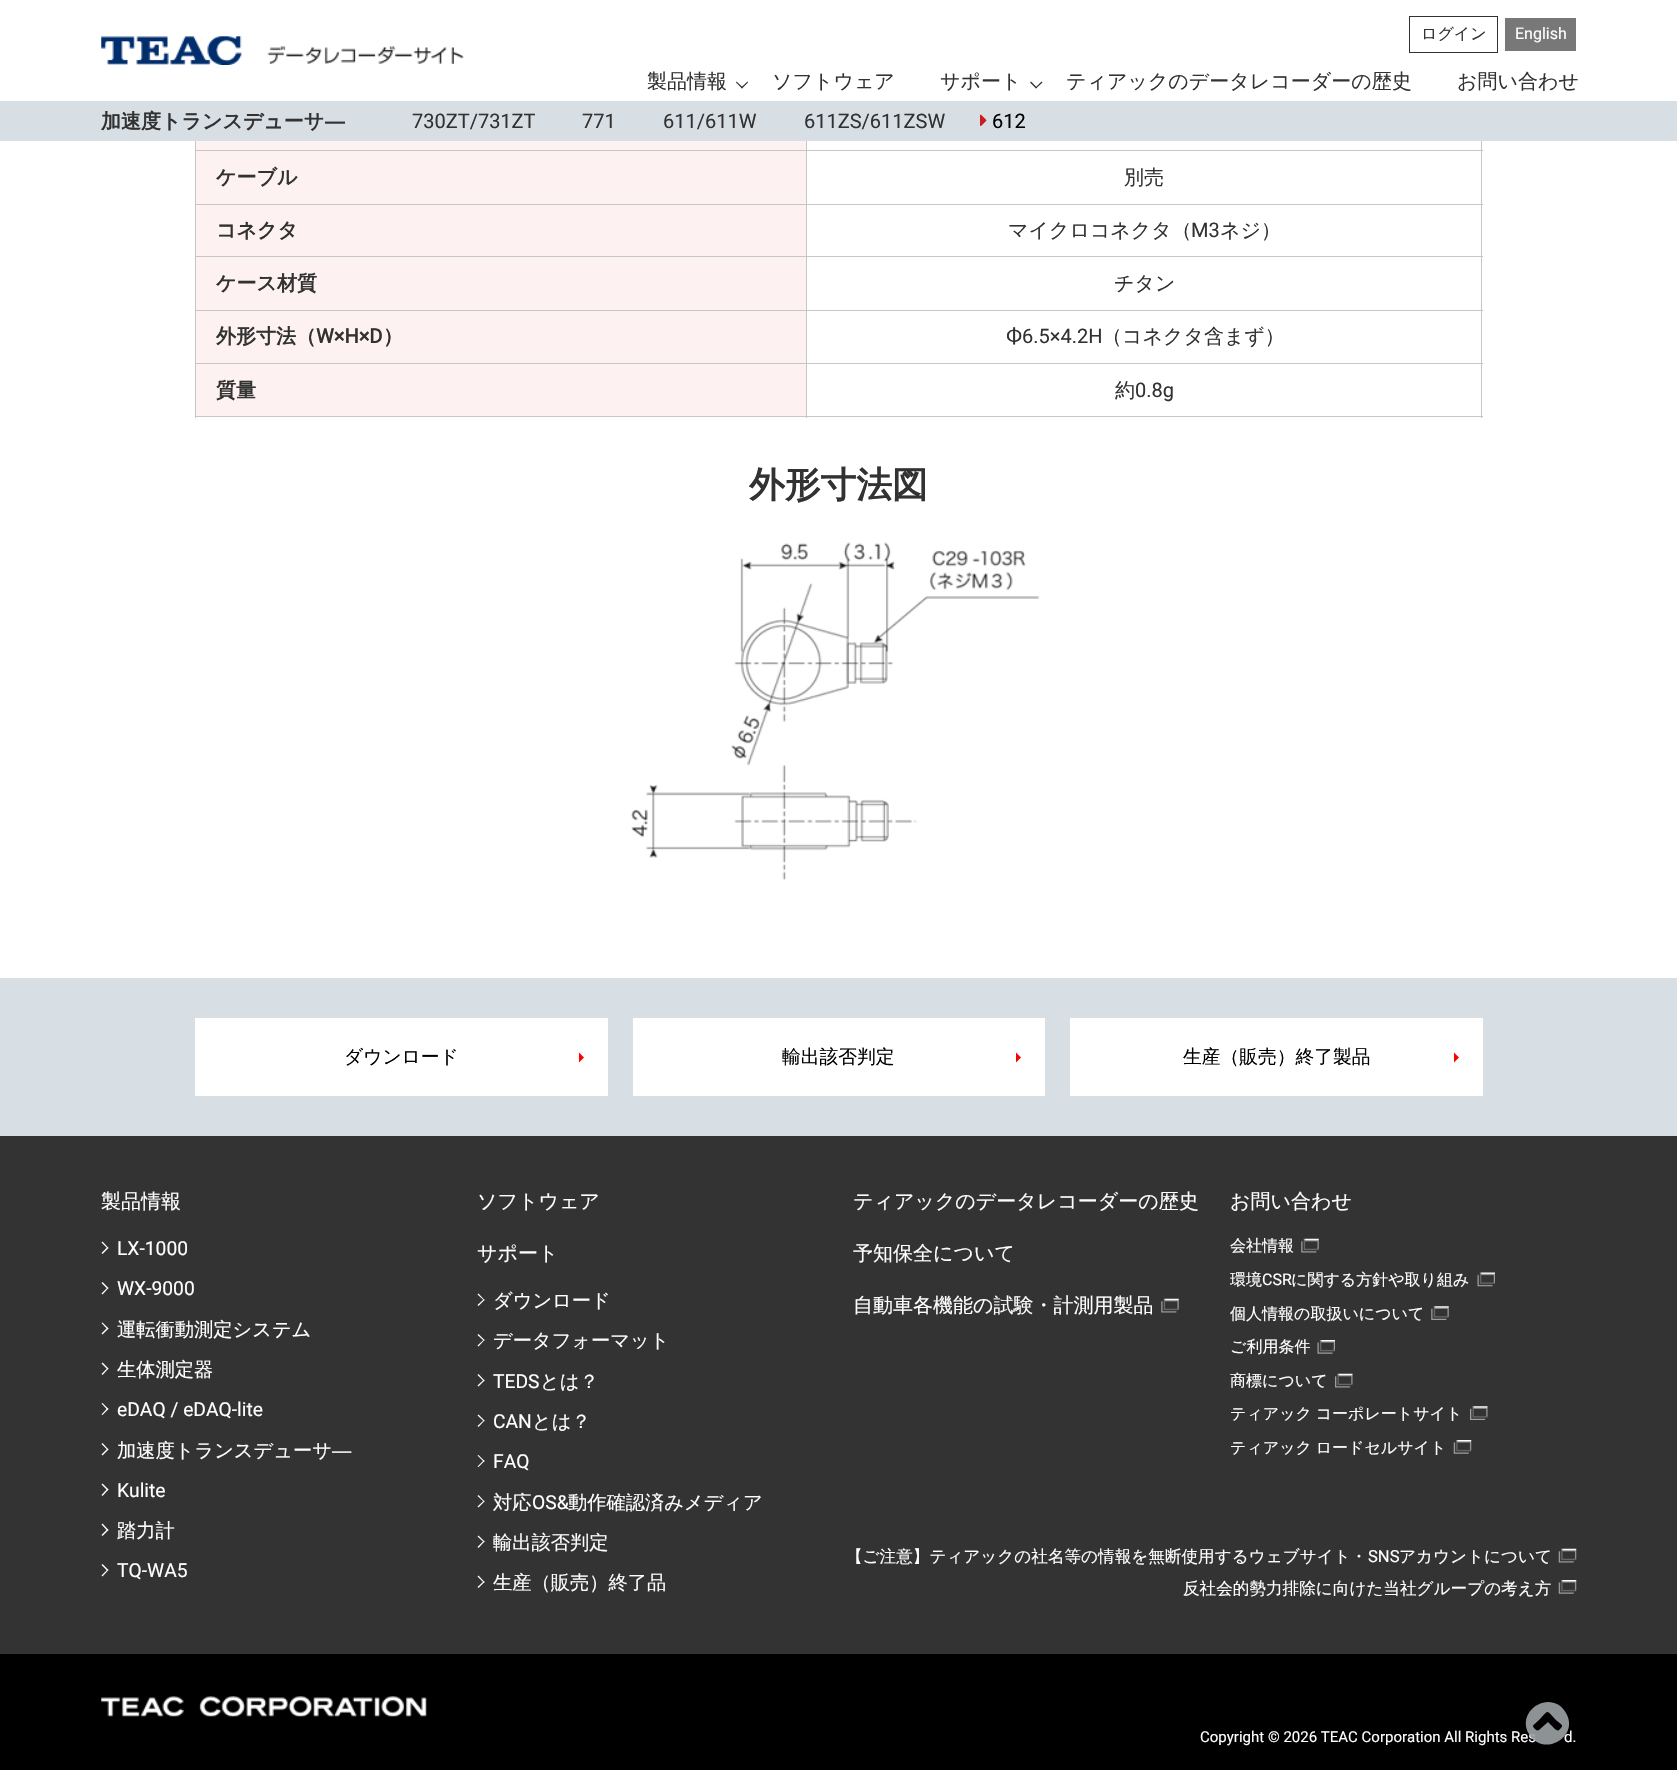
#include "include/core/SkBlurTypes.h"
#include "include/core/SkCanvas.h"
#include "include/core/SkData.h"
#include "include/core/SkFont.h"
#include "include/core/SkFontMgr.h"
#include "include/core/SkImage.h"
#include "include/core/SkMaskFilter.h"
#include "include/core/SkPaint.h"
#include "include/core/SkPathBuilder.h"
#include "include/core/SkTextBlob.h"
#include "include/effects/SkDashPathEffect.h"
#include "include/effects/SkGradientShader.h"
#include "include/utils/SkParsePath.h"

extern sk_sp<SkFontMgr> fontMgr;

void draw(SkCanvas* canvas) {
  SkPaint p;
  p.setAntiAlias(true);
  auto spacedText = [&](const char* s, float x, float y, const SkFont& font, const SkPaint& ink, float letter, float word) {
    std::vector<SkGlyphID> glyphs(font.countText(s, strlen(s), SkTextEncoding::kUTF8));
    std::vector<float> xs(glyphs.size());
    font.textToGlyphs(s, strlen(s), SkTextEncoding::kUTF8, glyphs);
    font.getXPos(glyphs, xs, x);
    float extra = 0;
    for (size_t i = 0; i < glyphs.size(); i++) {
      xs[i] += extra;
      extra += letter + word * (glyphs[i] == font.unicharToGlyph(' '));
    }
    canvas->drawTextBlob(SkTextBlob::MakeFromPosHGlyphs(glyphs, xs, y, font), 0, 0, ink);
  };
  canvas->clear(SK_ColorWHITE);
  canvas->drawImageRect(SkImages::DeferredFromEncodedData(SkData::MakeFromFileName("images/1.png")), SkRect::MakeLTRB(101, 36, 464, 65), SkSamplingOptions());
  p.setStyle(SkPaint::kStroke_Style);
  p.setStrokeWidth(1);
  p.setColor(SkColorSetRGB(50, 50, 50));
  canvas->drawRect(SkRect::MakeLTRB(1409.5f, 16.5f, 1497.5f, 52.5f), p);
  p.setStyle(SkPaint::kFill_Style);
  p.setColor(SkColorSetRGB(120, 120, 120));
  canvas->drawRect(SkRect::MakeLTRB(1505, 18, 1576, 51), p);
  p.setColor(SkColorSetRGB(51, 51, 51));
  canvas->drawPath(SkPathBuilder().moveTo(741, 87.5f).lineTo(747.5f, 81.5f).lineTo(748, 82.5f).lineTo(742, 88.5f).close().detach(), p);
  canvas->drawPath(SkPathBuilder().moveTo(736, 82.5f).lineTo(736.5f, 81.5f).lineTo(743, 87.5f).lineTo(742, 88.5f).close().detach(), p);
  canvas->drawPath(SkPathBuilder().moveTo(1035.5f, 87.5f).lineTo(1041.5f, 81.5f).lineTo(1042.5f, 82.5f).lineTo(1036, 88.5f).close().detach(), p);
  canvas->drawPath(SkPathBuilder().moveTo(1030, 82.5f).lineTo(1031, 81.5f).lineTo(1037, 87.5f).lineTo(1036, 88.5f).close().detach(), p);
  p.setColor(SkColorSetRGB(216, 223, 228));
  canvas->drawRect(SkRect::MakeLTRB(0, 101, 1677, 141), p);
  canvas->drawImageRect(SkImages::DeferredFromEncodedData(SkData::MakeFromFileName("images/2.png")), SkRect::MakeLTRB(980, 114, 987, 126), SkSamplingOptions());
  p.setColor(SkColorSetRGB(254, 241, 241));
  canvas->drawRect(SkRect::MakeLTRB(196, 141, 806, 150), p);
  p.setColor(SkColorSetRGB(198, 198, 198));
  canvas->drawRect(SkRect::MakeLTRB(806, 150, 1483, 151), p);
  canvas->drawRect(SkRect::MakeLTRB(806, 204, 1483, 205), p);
  p.setColor(SkColorSetRGB(254, 241, 241));
  canvas->drawRect(SkRect::MakeLTRB(196, 205, 806, 310), p);
  p.setColor(SkColorSetRGB(198, 198, 198));
  canvas->drawRect(SkRect::MakeLTRB(806, 256, 1483, 257), p);
  canvas->drawRect(SkRect::MakeLTRB(806, 310, 1483, 311), p);
  canvas->drawRect(SkRect::MakeLTRB(806, 363, 1483, 364), p);
  canvas->drawRect(SkRect::MakeLTRB(1481, 363, 1482, 418), p);
  canvas->drawRect(SkRect::MakeLTRB(806, 416, 1483, 417), p);
  canvas->drawRect(SkRect::MakeLTRB(806, 363, 807, 418), p);
  canvas->drawRect(SkRect::MakeLTRB(195, 363, 808, 364), p);
  canvas->drawRect(SkRect::MakeLTRB(806, 310, 807, 364), p);
  canvas->drawRect(SkRect::MakeLTRB(195, 310, 808, 311), p);
  canvas->drawRect(SkRect::MakeLTRB(806, 256, 807, 311), p);
  canvas->drawRect(SkRect::MakeLTRB(195, 256, 808, 257), p);
  canvas->drawRect(SkRect::MakeLTRB(806, 204, 807, 258), p);
  canvas->drawRect(SkRect::MakeLTRB(195, 204, 808, 205), p);
  canvas->drawRect(SkRect::MakeLTRB(806, 150, 807, 205), p);
  canvas->drawRect(SkRect::MakeLTRB(195, 150, 808, 151), p);
  canvas->drawRect(SkRect::MakeLTRB(806, 141, 807, 151), p);
  p.setColor(SkColorSetRGB(254, 241, 241));
  canvas->drawRect(SkRect::MakeLTRB(196, 151, 806, 204), p);
  p.setColor(SkColorSetRGB(198, 198, 198));
  canvas->drawRect(SkRect::MakeLTRB(195, 416, 808, 417), p);
  canvas->drawRect(SkRect::MakeLTRB(195, 363, 196, 418), p);
  canvas->drawRect(SkRect::MakeLTRB(195, 310, 196, 364), p);
  canvas->drawRect(SkRect::MakeLTRB(195, 256, 196, 311), p);
  canvas->drawRect(SkRect::MakeLTRB(195, 204, 196, 258), p);
  canvas->drawRect(SkRect::MakeLTRB(195, 141, 196, 205), p);
  canvas->drawRect(SkRect::MakeLTRB(1481, 310, 1482, 364), p);
  canvas->drawRect(SkRect::MakeLTRB(1481, 256, 1482, 311), p);
  canvas->drawRect(SkRect::MakeLTRB(1481, 204, 1482, 258), p);
  canvas->drawRect(SkRect::MakeLTRB(1481, 141, 1482, 205), p);
  p.setColor(SkColorSetRGB(254, 241, 241));
  canvas->drawRect(SkRect::MakeLTRB(196, 311, 806, 363), p);
  canvas->drawRect(SkRect::MakeLTRB(196, 364, 806, 416), p);
  canvas->drawImageRect(SkImages::DeferredFromEncodedData(SkData::MakeFromFileName("images/3.png")), SkRect::MakeLTRB(631, 542, 1040, 881), SkSamplingOptions());
  p.setColor(SkColorSetRGB(216, 223, 228));
  canvas->drawRect(SkRect::MakeLTRB(0, 978, 1677, 1136), p);
  p.setColor(SK_ColorWHITE);
  canvas->drawRect(SkRect::MakeLTRB(195, 1018, 608, 1096), p);
  p.setColor(SkColorSetRGB(255, 0, 0));
  canvas->drawPath(SkPathBuilder().moveTo(579, 1062.5f).lineTo(579, 1052.5f).lineTo(584, 1057.5f).close().detach(), p);
  p.setColor(SK_ColorWHITE);
  canvas->drawRect(SkRect::MakeLTRB(633, 1018, 1045, 1096), p);
  p.setColor(SkColorSetRGB(255, 0, 0));
  canvas->drawPath(SkPathBuilder().moveTo(1016, 1062.5f).lineTo(1016, 1052.5f).lineTo(1021, 1057.5f).close().detach(), p);
  p.setColor(SK_ColorWHITE);
  canvas->drawRect(SkRect::MakeLTRB(1070, 1018, 1483, 1096), p);
  p.setColor(SkColorSetRGB(255, 0, 0));
  canvas->drawPath(SkPathBuilder().moveTo(1454, 1062.5f).lineTo(1454, 1052.5f).lineTo(1459, 1057.5f).close().detach(), p);
  p.setColor(SkColorSetRGB(51, 51, 51));
  canvas->drawRect(SkRect::MakeLTRB(0, 1136, 1677, 1654), p);
  p.setColor(SK_ColorWHITE);
  canvas->drawPath(SkPathBuilder().moveTo(101.5f, 1242.5f).lineTo(102.5f, 1241.5f).lineTo(108.5f, 1248).lineTo(107.5f, 1248.5f).close().detach(), p);
  canvas->drawPath(SkPathBuilder().moveTo(101.5f, 1253).lineTo(107.5f, 1247).lineTo(108.5f, 1248).lineTo(102.5f, 1254).close().detach(), p);
  canvas->drawPath(SkPathBuilder().moveTo(101.5f, 1283).lineTo(102.5f, 1282).lineTo(108.5f, 1288).lineTo(107.5f, 1289).close().detach(), p);
  canvas->drawPath(SkPathBuilder().moveTo(101.5f, 1293.5f).lineTo(107.5f, 1287.5f).lineTo(108.5f, 1288).lineTo(102.5f, 1294.5f).close().detach(), p);
  canvas->drawPath(SkPathBuilder().moveTo(101.5f, 1323).lineTo(102.5f, 1322.5f).lineTo(108.5f, 1328.5f).lineTo(107.5f, 1329.5f).close().detach(), p);
  canvas->drawPath(SkPathBuilder().moveTo(101.5f, 1333.5f).lineTo(107.5f, 1327.5f).lineTo(108.5f, 1328.5f).lineTo(102.5f, 1334.5f).close().detach(), p);
  canvas->drawPath(SkPathBuilder().moveTo(101.5f, 1363.5f).lineTo(102.5f, 1362.5f).lineTo(108.5f, 1368.5f).lineTo(107.5f, 1369.5f).close().detach(), p);
  canvas->drawPath(SkPathBuilder().moveTo(101.5f, 1374).lineTo(107.5f, 1368).lineTo(108.5f, 1368.5f).lineTo(102.5f, 1375).close().detach(), p);
  canvas->drawPath(SkPathBuilder().moveTo(101.5f, 1403.5f).lineTo(102.5f, 1403).lineTo(108.5f, 1409).lineTo(107.5f, 1410).close().detach(), p);
  canvas->drawPath(SkPathBuilder().moveTo(101.5f, 1414.5f).lineTo(107.5f, 1408).lineTo(108.5f, 1409).lineTo(102.5f, 1415).close().detach(), p);
  canvas->drawPath(SkPathBuilder().moveTo(101.5f, 1444).lineTo(102.5f, 1443).lineTo(108.5f, 1449.5f).lineTo(107.5f, 1450).close().detach(), p);
  canvas->drawPath(SkPathBuilder().moveTo(101.5f, 1454.5f).lineTo(107.5f, 1448.5f).lineTo(108.5f, 1449.5f).lineTo(102.5f, 1455.5f).close().detach(), p);
  canvas->drawPath(SkPathBuilder().moveTo(101.5f, 1484.5f).lineTo(102.5f, 1483.5f).lineTo(108.5f, 1489.5f).lineTo(107.5f, 1490.5f).close().detach(), p);
  canvas->drawPath(SkPathBuilder().moveTo(101.5f, 1495).lineTo(107.5f, 1488.5f).lineTo(108.5f, 1489.5f).lineTo(102.5f, 1496).close().detach(), p);
  canvas->drawPath(SkPathBuilder().moveTo(101.5f, 1524.5f).lineTo(102.5f, 1523.5f).lineTo(108.5f, 1530).lineTo(107.5f, 1531).close().detach(), p);
  canvas->drawPath(SkPathBuilder().moveTo(101.5f, 1535).lineTo(107.5f, 1529).lineTo(108.5f, 1530).lineTo(102.5f, 1536).close().detach(), p);
  canvas->drawPath(SkPathBuilder().moveTo(101.5f, 1565).lineTo(102.5f, 1564).lineTo(108.5f, 1570).lineTo(107.5f, 1571).close().detach(), p);
  canvas->drawPath(SkPathBuilder().moveTo(101.5f, 1575.5f).lineTo(107.5f, 1569.5f).lineTo(108.5f, 1570).lineTo(102.5f, 1576.5f).close().detach(), p);
  canvas->drawPath(SkPathBuilder().moveTo(477.5f, 1294.5f).lineTo(478.5f, 1293.5f).lineTo(484.5f, 1300).lineTo(484, 1300.5f).close().detach(), p);
  canvas->drawPath(SkPathBuilder().moveTo(477.5f, 1305).lineTo(484, 1299).lineTo(484.5f, 1300).lineTo(478.5f, 1306).close().detach(), p);
  canvas->drawPath(SkPathBuilder().moveTo(477.5f, 1335).lineTo(478.5f, 1334).lineTo(484.5f, 1340).lineTo(484, 1341).close().detach(), p);
  canvas->drawPath(SkPathBuilder().moveTo(477.5f, 1345.5f).lineTo(484, 1339.5f).lineTo(484.5f, 1340).lineTo(478.5f, 1346.5f).close().detach(), p);
  canvas->drawPath(SkPathBuilder().moveTo(477.5f, 1375).lineTo(478.5f, 1374).lineTo(484.5f, 1380.5f).lineTo(484, 1381.5f).close().detach(), p);
  canvas->drawPath(SkPathBuilder().moveTo(477.5f, 1385.5f).lineTo(484, 1379.5f).lineTo(484.5f, 1380.5f).lineTo(478.5f, 1386.5f).close().detach(), p);
  canvas->drawPath(SkPathBuilder().moveTo(477.5f, 1415.5f).lineTo(478.5f, 1414.5f).lineTo(484.5f, 1420.5f).lineTo(484, 1421.5f).close().detach(), p);
  canvas->drawPath(SkPathBuilder().moveTo(477.5f, 1426).lineTo(484, 1420).lineTo(484.5f, 1420.5f).lineTo(478.5f, 1427).close().detach(), p);
  canvas->drawPath(SkPathBuilder().moveTo(477.5f, 1455.5f).lineTo(478.5f, 1455).lineTo(484.5f, 1461).lineTo(484, 1462).close().detach(), p);
  canvas->drawPath(SkPathBuilder().moveTo(477.5f, 1466.5f).lineTo(484, 1460).lineTo(484.5f, 1461).lineTo(478.5f, 1467).close().detach(), p);
  canvas->drawPath(SkPathBuilder().moveTo(477.5f, 1496).lineTo(478.5f, 1495).lineTo(484.5f, 1501.5f).lineTo(484, 1502).close().detach(), p);
  canvas->drawPath(SkPathBuilder().moveTo(477.5f, 1506.5f).lineTo(484, 1500.5f).lineTo(484.5f, 1501.5f).lineTo(478.5f, 1507.5f).close().detach(), p);
  canvas->drawPath(SkPathBuilder().moveTo(477.5f, 1536.5f).lineTo(478.5f, 1535.5f).lineTo(484.5f, 1541.5f).lineTo(484, 1542.5f).close().detach(), p);
  canvas->drawPath(SkPathBuilder().moveTo(477.5f, 1547).lineTo(484, 1540.5f).lineTo(484.5f, 1541.5f).lineTo(478.5f, 1548).close().detach(), p);
  canvas->drawPath(SkPathBuilder().moveTo(477.5f, 1576.5f).lineTo(478.5f, 1575.5f).lineTo(484.5f, 1582).lineTo(484, 1583).close().detach(), p);
  canvas->drawPath(SkPathBuilder().moveTo(477.5f, 1587).lineTo(484, 1581).lineTo(484.5f, 1582).lineTo(478.5f, 1588).close().detach(), p);
  canvas->drawImageRect(SkImages::DeferredFromEncodedData(SkData::MakeFromFileName("images/4.png")), SkRect::MakeLTRB(1161, 1298, 1179, 1313), SkSamplingOptions());
  canvas->drawImageRect(SkImages::DeferredFromEncodedData(SkData::MakeFromFileName("images/4.png")), SkRect::MakeLTRB(1301, 1238, 1319, 1253), SkSamplingOptions());
  canvas->drawImageRect(SkImages::DeferredFromEncodedData(SkData::MakeFromFileName("images/5.png")), SkRect::MakeLTRB(1477, 1272, 1495, 1287), SkSamplingOptions());
  canvas->drawImageRect(SkImages::DeferredFromEncodedData(SkData::MakeFromFileName("images/6.png")), SkRect::MakeLTRB(1431, 1306, 1449, 1320), SkSamplingOptions());
  canvas->drawImageRect(SkImages::DeferredFromEncodedData(SkData::MakeFromFileName("images/7.png")), SkRect::MakeLTRB(1317, 1340, 1335, 1354), SkSamplingOptions());
  canvas->drawImageRect(SkImages::DeferredFromEncodedData(SkData::MakeFromFileName("images/8.png")), SkRect::MakeLTRB(1335, 1373, 1353, 1388), SkSamplingOptions());
  canvas->drawImageRect(SkImages::DeferredFromEncodedData(SkData::MakeFromFileName("images/9.png")), SkRect::MakeLTRB(1470, 1406, 1488, 1420), SkSamplingOptions());
  canvas->drawImageRect(SkImages::DeferredFromEncodedData(SkData::MakeFromFileName("images/10.png")), SkRect::MakeLTRB(1453, 1440, 1472, 1454), SkSamplingOptions());
  canvas->drawImageRect(SkImages::DeferredFromEncodedData(SkData::MakeFromFileName("images/11.png")), SkRect::MakeLTRB(1558, 1548, 1577, 1563), SkSamplingOptions());
  canvas->drawImageRect(SkImages::DeferredFromEncodedData(SkData::MakeFromFileName("images/12.png")), SkRect::MakeLTRB(1558, 1580, 1577, 1594), SkSamplingOptions());
  p.setColor(SK_ColorBLACK);
  canvas->drawRect(SkRect::MakeLTRB(0, 1654, 1677, 1770), p);
  canvas->drawImageRect(SkImages::DeferredFromEncodedData(SkData::MakeFromFileName("images/13.png")), SkRect::MakeLTRB(101, 1696, 427, 1717), SkSamplingOptions());
  SkFont font1(fontMgr->matchFamilyStyle("WenQuanYi Zen Hei", SkFontStyle(500, SkFontStyle::kNormal_Width, SkFontStyle::kUpright_Slant)), 16);
  font1.setSubpixel(true);
  p.setColor(SkColorSetRGB(50, 50, 50));
  canvas->drawString("ログイン", 1421, 39, font1, p);
  SkFont font2(fontMgr->matchFamilyStyle("Roboto", SkFontStyle::Normal()), 16);
  font2.setSubpixel(true);
  p.setColor(SK_ColorWHITE);
  canvas->drawString("English", 1515, 39, font2, p);
  SkFont font3(fontMgr->matchFamilyStyle("WenQuanYi Zen Hei", SkFontStyle(500, SkFontStyle::kNormal_Width, SkFontStyle::kUpright_Slant)), 20);
  font3.setSubpixel(true);
  p.setColor(SkColorSetRGB(50, 50, 50));
  canvas->drawString("製品情報", 647, 88, font3, p);
  canvas->drawString("ソフトウェア", 772, 88, font3, p);
  canvas->drawString("サポート", 940, 88, font3, p);
  canvas->drawString("ティアックのデータレコーダーの歴史", 1066, 88, font3, p);
  canvas->drawString("お問い合わせ", 1457, 88, font3, p);
  SkFont font4(fontMgr->matchFamilyStyle("WenQuanYi Zen Hei", SkFontStyle::Bold()), 20);
  font4.setSubpixel(true);
  canvas->drawString("加速度トランスデューサ", 101, 128, font4, p);
  SkFont font5(fontMgr->matchFamilyStyle("Liberation Sans", SkFontStyle::Bold()), 20);
  font5.setSubpixel(true);
  canvas->drawString("―", 325, 128, font5, p);
  SkFont font6(fontMgr->matchFamilyStyle("Roboto", SkFontStyle::Normal()), 20);
  font6.setSubpixel(true);
  canvas->drawString("730ZT/731ZT", 412, 128, font6, p);
  canvas->drawString("771", 582, 128, font6, p);
  canvas->drawString("611/611W", 663, 128, font6, p);
  canvas->drawString("611ZS/611ZSW", 804, 128, font6, p);
  p.setColor(SK_ColorBLACK);
  canvas->drawString("612", 992, 128, font6, p);
  p.setColor(SkColorSetRGB(50, 50, 50));
  canvas->drawString("ケーブル", 216, 184, font4, p);
  canvas->drawString("別売", 1124, 184, font3, p);
  canvas->drawString("コネクタ", 216, 237, font4, p);
  canvas->drawString("マイクロコネクタ（", 1008, 237, font3, p);
  canvas->drawString("M3", 1191, 237, font6, p);
  canvas->drawString("ネジ）", 1220, 237, font3, p);
  canvas->drawString("ケース材質", 216, 290, font4, p);
  canvas->drawString("チタン", 1114, 290, font3, p);
  canvas->drawString("外形寸法（", 216, 343, font4, p);
  SkFont font7(fontMgr->matchFamilyStyle("Roboto", SkFontStyle::Bold()), 20);
  font7.setSubpixel(true);
  canvas->drawString("W×H×D", 316, 343, font7, p);
  canvas->drawString("）", 383, 343, font4, p);
  canvas->drawString("Φ", 1006, 343, font3, p);
  canvas->drawString("6.5×4.2H", 1022, 343, font6, p);
  canvas->drawString("（コネクタ含まず）", 1102, 343, font3, p);
  canvas->drawString("質量", 216, 397, font4, p);
  canvas->drawString("約", 1115, 397, font3, p);
  canvas->drawString("0.8g", 1135, 397, font6, p);
  SkFont font8(fontMgr->matchFamilyStyle("WenQuanYi Zen Hei", SkFontStyle::Bold()), 35.75f);
  font8.setSubpixel(true);
  canvas->drawString("外形寸法図", 749, 497, font8, p);
  SkFont font9(fontMgr->matchFamilyStyle("WenQuanYi Zen Hei", SkFontStyle(500, SkFontStyle::kNormal_Width, SkFontStyle::kUpright_Slant)), 18.75f);
  font9.setSubpixel(true);
  p.setColor(SK_ColorBLACK);
  canvas->drawString("ダウンロード", 344, 1063, font9, p);
  canvas->drawString("輸出該否判定", 782, 1063, font9, p);
  canvas->drawString("生産（販売）終了製品", 1183, 1063, font9, p);
  p.setColor(SK_ColorWHITE);
  canvas->drawString("製品情報", 101, 1208, font3, p);
  SkFont font10(fontMgr->matchFamilyStyle("Roboto", SkFontStyle::Normal()), 19.25f);
  font10.setSubpixel(true);
  canvas->drawString("LX-1000", 117, 1255, font10, p);
  canvas->drawString("WX-9000", 117, 1295, font10, p);
  SkFont font11(fontMgr->matchFamilyStyle("WenQuanYi Zen Hei", SkFontStyle(500, SkFontStyle::kNormal_Width, SkFontStyle::kUpright_Slant)), 19.25f);
  font11.setSubpixel(true);
  canvas->drawString("運転衝動測定システム", 117, 1336, font11, p);
  canvas->drawString("生体測定器", 117, 1376, font11, p);
  canvas->drawString("eDAQ / eDAQ-lite", 117, 1416, font10, p);
  canvas->drawString("加速度トランスデューサ", 117, 1457, font11, p);
  SkFont font12(fontMgr->matchFamilyStyle("Liberation Sans", SkFontStyle::Normal()), 19.25f);
  font12.setSubpixel(true);
  canvas->drawString("―", 332, 1457, font12, p);
  canvas->drawString("Kulite", 117, 1497, font10, p);
  canvas->drawString("踏力計", 117, 1537, font11, p);
  canvas->drawString("TQ-WA5", 117, 1577, font10, p);
  canvas->drawString("ソフトウェア", 477, 1208, font3, p);
  canvas->drawString("サポート", 477, 1260, font3, p);
  canvas->drawString("ダウンロード", 493, 1307, font11, p);
  canvas->drawString("データフォーマット", 493, 1347, font11, p);
  canvas->drawString("TEDS", 493, 1388, font10, p);
  canvas->drawString("とは？", 540, 1388, font11, p);
  canvas->drawString("CAN", 493, 1428, font10, p);
  canvas->drawString("とは？", 532, 1428, font11, p);
  canvas->drawString("FAQ", 493, 1468, font10, p);
  canvas->drawString("対応", 493, 1509, font11, p);
  canvas->drawString("OS&", 532, 1509, font10, p);
  canvas->drawString("動作確認済みメディア", 568, 1509, font11, p);
  canvas->drawString("輸出該否判定", 493, 1549, font11, p);
  canvas->drawString("生産（販売）終了品", 493, 1589, font11, p);
  canvas->drawString("ティアックのデータレコーダーの歴史", 853, 1208, font3, p);
  canvas->drawString("予知保全について", 853, 1260, font3, p);
  canvas->drawString("自動車各機能の試験・計測用製品", 853, 1312, font3, p);
  canvas->drawString("お問い合わせ", 1230, 1208, font3, p);
  canvas->drawString("会社情報", 1230, 1251, font1, p);
  canvas->drawString("環境", 1230, 1285, font1, p);
  canvas->drawString("CSR", 1262, 1285, font2, p);
  canvas->drawString("に関する方針や取り組み", 1291, 1285, font1, p);
  canvas->drawString("個人情報の取扱いについて", 1230, 1319, font1, p);
  canvas->drawString("ご利用条件", 1230, 1352, font1, p);
  canvas->drawString("商標について", 1230, 1386, font1, p);
  spacedText("ティアック コーポレートサイト", 1230, 1419, font1, p, 0, -1);
  spacedText("ティアック ロードセルサイト", 1230, 1453, font1, p, 0, -1);
  SkFont font13(fontMgr->matchFamilyStyle("WenQuanYi Zen Hei", SkFontStyle(500, SkFontStyle::kNormal_Width, SkFontStyle::kUpright_Slant)), 16.6f);
  font13.setSubpixel(true);
  canvas->drawString("【ご注意】ティアックの社名等の情報を無断使用するウェブサイト・", 846, 1562, font13, p);
  SkFont font14(fontMgr->matchFamilyStyle("Roboto", SkFontStyle::Normal()), 16.6f);
  font14.setSubpixel(true);
  canvas->drawString("SNS", 1368, 1562, font14, p);
  canvas->drawString("アカウントについて", 1399, 1562, font13, p);
  canvas->drawString("反社会的勢力排除に向けた当社グループの考え方", 1183, 1594, font13, p);
  SkFont font15(fontMgr->matchFamilyStyle("Roboto", SkFontStyle::Normal()), 15);
  font15.setSubpixel(true);
  canvas->drawString("Copyright © 2026 TEAC Corporation All Rights Res", 1200, 1742, font15, p);
  canvas->drawString("d.", 1564, 1742, font15, p);
  p.setColor(SkColorSetARGB(230, 156, 163, 164));
  canvas->drawPath(SkPathBuilder().moveTo(1559, 1730).cubicTo(1564, 1725, 1563, 1726, 1557, 1721).cubicTo(1545, 1709, 1550, 1709, 1538, 1721).cubicTo(1534, 1725, 1531, 1725, 1535, 1729).cubicTo(1536, 1730, 1537, 1731, 1539, 1730).lineTo(1548, 1722).lineTo(1553, 1727).cubicTo(1554, 1728, 1557, 1732, 1559, 1730).close().moveTo(1566, 1713).cubicTo(1580, 1737, 1543, 1758, 1529, 1734).cubicTo(1515, 1710, 1552, 1688, 1566, 1713).close().detach(), p);
}
